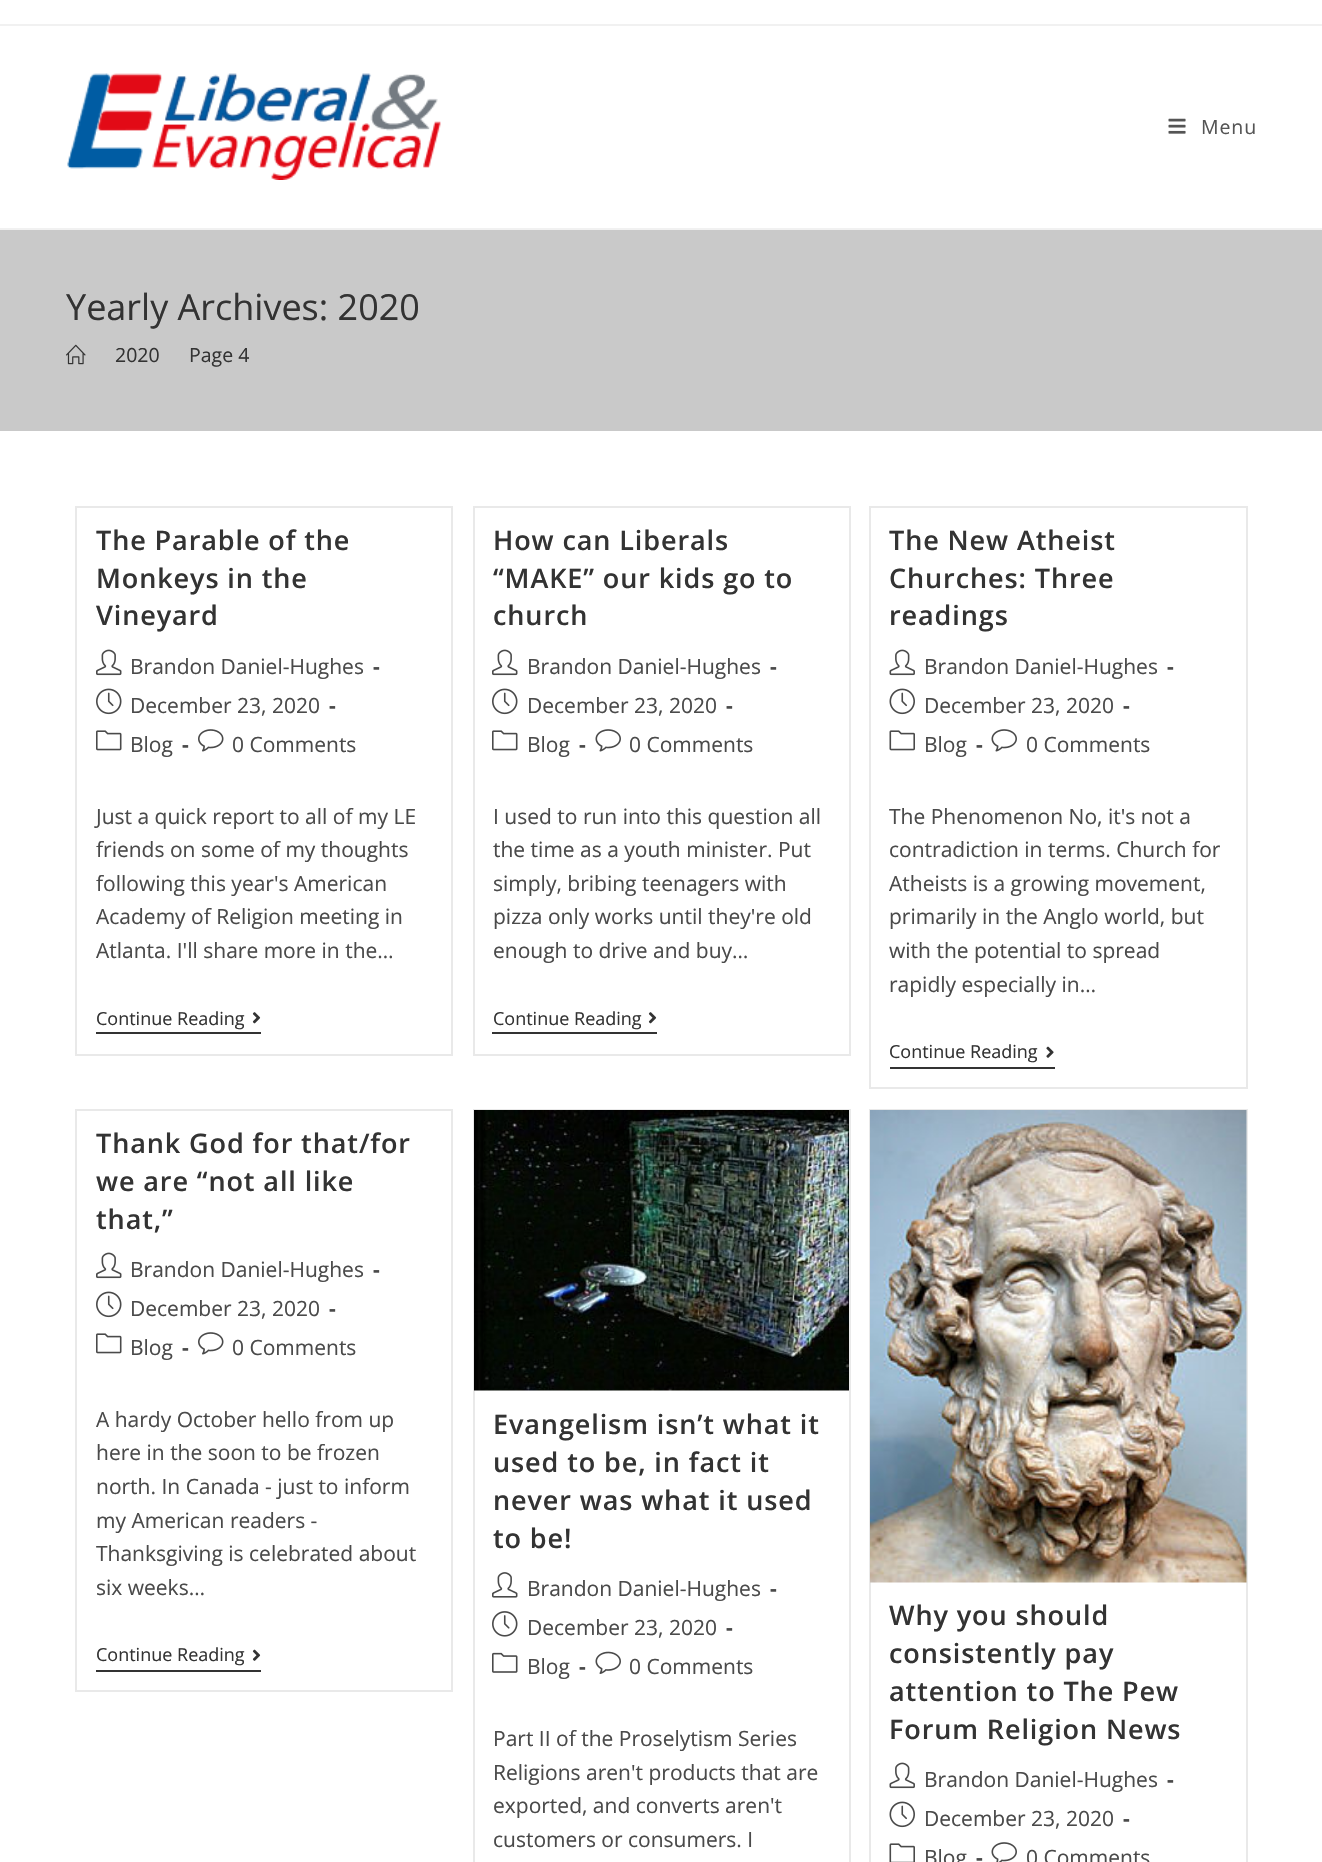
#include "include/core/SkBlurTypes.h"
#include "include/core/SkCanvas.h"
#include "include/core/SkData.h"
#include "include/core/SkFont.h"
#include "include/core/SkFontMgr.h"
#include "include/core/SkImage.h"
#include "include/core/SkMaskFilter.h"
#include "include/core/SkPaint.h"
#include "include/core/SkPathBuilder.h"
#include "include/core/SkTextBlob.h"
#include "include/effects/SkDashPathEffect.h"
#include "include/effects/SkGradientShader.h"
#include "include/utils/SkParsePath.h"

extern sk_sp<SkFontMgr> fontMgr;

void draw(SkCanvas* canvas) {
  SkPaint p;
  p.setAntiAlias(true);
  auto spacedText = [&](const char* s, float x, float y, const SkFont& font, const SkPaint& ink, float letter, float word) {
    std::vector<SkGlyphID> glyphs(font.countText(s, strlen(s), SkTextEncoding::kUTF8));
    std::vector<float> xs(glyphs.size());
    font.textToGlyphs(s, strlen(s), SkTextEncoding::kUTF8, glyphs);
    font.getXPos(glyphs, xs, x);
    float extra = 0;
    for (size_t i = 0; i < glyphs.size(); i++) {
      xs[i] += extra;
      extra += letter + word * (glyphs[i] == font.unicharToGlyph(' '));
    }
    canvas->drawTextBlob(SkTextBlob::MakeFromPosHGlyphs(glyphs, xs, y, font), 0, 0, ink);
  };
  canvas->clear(SK_ColorWHITE);
  p.setColor(SkColorSetRGB(241, 241, 241));
  canvas->drawRect(SkRect::MakeLTRB(0, 24, 1322, 26), p);
  canvas->drawRect(SkRect::MakeLTRB(0, 228, 1322, 230), p);
  canvas->drawImageRect(SkImages::DeferredFromEncodedData(SkData::MakeFromFileName("images/1.png")), SkRect::MakeLTRB(67, 73, 441, 180), SkSamplingOptions());
  canvas->drawImageRect(SkImages::DeferredFromEncodedData(SkData::MakeFromFileName("images/2.png")), SkRect::MakeLTRB(1168, 118, 1186, 134), SkSamplingOptions());
  p.setColor(SkColorSetRGB(201, 201, 201));
  canvas->drawRect(SkRect::MakeLTRB(0, 230, 1322, 431), p);
  canvas->drawImageRect(SkImages::DeferredFromEncodedData(SkData::MakeFromFileName("images/3.png")), SkRect::MakeLTRB(66, 344, 86, 365), SkSamplingOptions());
  p.setStyle(SkPaint::kStroke_Style);
  p.setStrokeWidth(2);
  p.setColor(SkColorSetRGB(233, 233, 233));
  canvas->drawRect(SkRect::MakeLTRB(76, 507, 452, 1055), p);
  canvas->drawImageRect(SkImages::DeferredFromEncodedData(SkData::MakeFromFileName("images/4.png")), SkRect::MakeLTRB(96, 649, 122, 676), SkSamplingOptions());
  canvas->drawImageRect(SkImages::DeferredFromEncodedData(SkData::MakeFromFileName("images/5.png")), SkRect::MakeLTRB(96, 688, 122, 715), SkSamplingOptions());
  canvas->drawImageRect(SkImages::DeferredFromEncodedData(SkData::MakeFromFileName("images/6.png")), SkRect::MakeLTRB(96, 730, 122, 751), SkSamplingOptions());
  canvas->drawImageRect(SkImages::DeferredFromEncodedData(SkData::MakeFromFileName("images/7.png")), SkRect::MakeLTRB(198, 729, 224, 752), SkSamplingOptions());
  p.setStyle(SkPaint::kFill_Style);
  p.setColor(SkColorSetRGB(51, 51, 51));
  canvas->drawRect(SkRect::MakeLTRB(96, 1032, 261, 1034), p);
  canvas->drawImageRect(SkImages::DeferredFromEncodedData(SkData::MakeFromFileName("images/8.png")), SkRect::MakeLTRB(252, 1012, 261, 1024), SkSamplingOptions());
  p.setStyle(SkPaint::kStroke_Style);
  p.setColor(SkColorSetRGB(233, 233, 233));
  canvas->drawRect(SkRect::MakeLTRB(474, 507, 850, 1055), p);
  canvas->drawImageRect(SkImages::DeferredFromEncodedData(SkData::MakeFromFileName("images/4.png")), SkRect::MakeLTRB(492, 649, 518, 676), SkSamplingOptions());
  canvas->drawImageRect(SkImages::DeferredFromEncodedData(SkData::MakeFromFileName("images/5.png")), SkRect::MakeLTRB(492, 688, 518, 715), SkSamplingOptions());
  canvas->drawImageRect(SkImages::DeferredFromEncodedData(SkData::MakeFromFileName("images/6.png")), SkRect::MakeLTRB(492, 730, 518, 751), SkSamplingOptions());
  canvas->drawImageRect(SkImages::DeferredFromEncodedData(SkData::MakeFromFileName("images/9.png")), SkRect::MakeLTRB(595, 729, 621, 752), SkSamplingOptions());
  p.setStyle(SkPaint::kFill_Style);
  p.setColor(SkColorSetRGB(51, 51, 51));
  canvas->drawRect(SkRect::MakeLTRB(492, 1032, 657, 1034), p);
  canvas->drawImageRect(SkImages::DeferredFromEncodedData(SkData::MakeFromFileName("images/8.png")), SkRect::MakeLTRB(648, 1012, 657, 1024), SkSamplingOptions());
  p.setStyle(SkPaint::kStroke_Style);
  p.setColor(SkColorSetRGB(233, 233, 233));
  canvas->drawRect(SkRect::MakeLTRB(870, 507, 1247, 1088), p);
  canvas->drawImageRect(SkImages::DeferredFromEncodedData(SkData::MakeFromFileName("images/10.png")), SkRect::MakeLTRB(889, 649, 915, 676), SkSamplingOptions());
  canvas->drawImageRect(SkImages::DeferredFromEncodedData(SkData::MakeFromFileName("images/11.png")), SkRect::MakeLTRB(889, 688, 915, 715), SkSamplingOptions());
  canvas->drawImageRect(SkImages::DeferredFromEncodedData(SkData::MakeFromFileName("images/12.png")), SkRect::MakeLTRB(889, 730, 915, 751), SkSamplingOptions());
  canvas->drawImageRect(SkImages::DeferredFromEncodedData(SkData::MakeFromFileName("images/9.png")), SkRect::MakeLTRB(991, 729, 1017, 752), SkSamplingOptions());
  p.setStyle(SkPaint::kFill_Style);
  p.setColor(SkColorSetRGB(51, 51, 51));
  canvas->drawRect(SkRect::MakeLTRB(890, 1067, 1055, 1069), p);
  canvas->drawImageRect(SkImages::DeferredFromEncodedData(SkData::MakeFromFileName("images/13.png")), SkRect::MakeLTRB(1046, 1046, 1054, 1058), SkSamplingOptions());
  p.setStyle(SkPaint::kStroke_Style);
  p.setColor(SkColorSetRGB(233, 233, 233));
  canvas->drawRect(SkRect::MakeLTRB(76, 1110, 452, 1691), p);
  canvas->drawImageRect(SkImages::DeferredFromEncodedData(SkData::MakeFromFileName("images/4.png")), SkRect::MakeLTRB(96, 1252, 122, 1279), SkSamplingOptions());
  canvas->drawImageRect(SkImages::DeferredFromEncodedData(SkData::MakeFromFileName("images/5.png")), SkRect::MakeLTRB(96, 1291, 122, 1318), SkSamplingOptions());
  canvas->drawImageRect(SkImages::DeferredFromEncodedData(SkData::MakeFromFileName("images/6.png")), SkRect::MakeLTRB(96, 1333, 122, 1354), SkSamplingOptions());
  canvas->drawImageRect(SkImages::DeferredFromEncodedData(SkData::MakeFromFileName("images/7.png")), SkRect::MakeLTRB(198, 1332, 224, 1355), SkSamplingOptions());
  p.setStyle(SkPaint::kFill_Style);
  p.setColor(SkColorSetRGB(51, 51, 51));
  canvas->drawRect(SkRect::MakeLTRB(96, 1670, 261, 1672), p);
  canvas->drawImageRect(SkImages::DeferredFromEncodedData(SkData::MakeFromFileName("images/14.png")), SkRect::MakeLTRB(252, 1649, 261, 1661), SkSamplingOptions());
  p.setStyle(SkPaint::kStroke_Style);
  p.setColor(SkColorSetRGB(233, 233, 233));
  canvas->drawRect(SkRect::MakeLTRB(474, 1110, 850, 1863), p);
  canvas->drawImageRect(SkImages::DeferredFromEncodedData(SkData::MakeFromFileName("images/15.png")), SkRect::MakeLTRB(474, 1110, 849, 1391), SkSamplingOptions());
  canvas->drawImageRect(SkImages::DeferredFromEncodedData(SkData::MakeFromFileName("images/16.png")), SkRect::MakeLTRB(492, 1572, 518, 1598), SkSamplingOptions());
  canvas->drawImageRect(SkImages::DeferredFromEncodedData(SkData::MakeFromFileName("images/17.png")), SkRect::MakeLTRB(492, 1611, 518, 1637), SkSamplingOptions());
  canvas->drawImageRect(SkImages::DeferredFromEncodedData(SkData::MakeFromFileName("images/18.png")), SkRect::MakeLTRB(492, 1652, 518, 1673), SkSamplingOptions());
  canvas->drawImageRect(SkImages::DeferredFromEncodedData(SkData::MakeFromFileName("images/19.png")), SkRect::MakeLTRB(595, 1651, 621, 1674), SkSamplingOptions());
  canvas->drawRect(SkRect::MakeLTRB(870, 1110, 1247, 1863), p);
  canvas->drawImageRect(SkImages::DeferredFromEncodedData(SkData::MakeFromFileName("images/20.png")), SkRect::MakeLTRB(870, 1110, 1247, 1583), SkSamplingOptions());
  canvas->drawImageRect(SkImages::DeferredFromEncodedData(SkData::MakeFromFileName("images/10.png")), SkRect::MakeLTRB(889, 1762, 915, 1789), SkSamplingOptions());
  canvas->drawImageRect(SkImages::DeferredFromEncodedData(SkData::MakeFromFileName("images/11.png")), SkRect::MakeLTRB(889, 1801, 915, 1828), SkSamplingOptions());
  canvas->drawImageRect(SkImages::DeferredFromEncodedData(SkData::MakeFromFileName("images/21.png")), SkRect::MakeLTRB(889, 1843, 915, 1862), SkSamplingOptions());
  canvas->drawImageRect(SkImages::DeferredFromEncodedData(SkData::MakeFromFileName("images/22.png")), SkRect::MakeLTRB(991, 1842, 1017, 1862), SkSamplingOptions());
  SkFont font1(fontMgr->matchFamilyStyle("Open Sans", SkFontStyle::Normal()), 19.5f);
  font1.setSubpixel(true);
  p.setStyle(SkPaint::kFill_Style);
  p.setColor(SkColorSetRGB(85, 85, 85));
  spacedText("Menu", 1201, 134, font1, p, 0.9f, 0);
  SkFont font2(fontMgr->matchFamilyStyle("Open Sans", SkFontStyle::Normal()), 36);
  font2.setSubpixel(true);
  p.setColor(SkColorSetRGB(51, 51, 51));
  canvas->drawString("Yearly Archives: 2020", 66, 320, font2, p);
  canvas->drawString("2020", 115, 362, font1, p);
  canvas->drawString("Page 4", 189, 362, font1, p);
  SkFont font3(fontMgr->matchFamilyStyle("Open Sans", SkFontStyle(600, SkFontStyle::kNormal_Width, SkFontStyle::kUpright_Slant)), 27);
  font3.setSubpixel(true);
  spacedText("The Parable of the", 96, 550, font3, p, 0.9f, 0);
  spacedText("Monkeys in the", 96, 588, font3, p, 0.9f, 0);
  spacedText("Vineyard", 96, 625, font3, p, 0.9f, 0);
  SkFont font4(fontMgr->matchFamilyStyle("Open Sans", SkFontStyle::Normal()), 21);
  font4.setSubpixel(true);
  p.setColor(SkColorSetRGB(74, 74, 74));
  canvas->drawString("Brandon Daniel-Hughes", 130, 674, font4, p);
  SkFont font5(fontMgr->matchFamilyStyle("Open Sans", SkFontStyle::Bold()), 21);
  font5.setSubpixel(true);
  canvas->drawString("-", 373, 674, font5, p);
  canvas->drawString("December 23, 2020", 130, 713, font4, p);
  canvas->drawString("-", 329, 713, font5, p);
  canvas->drawString("Blog", 130, 752, font4, p);
  canvas->drawString("-", 182, 752, font5, p);
  canvas->drawString("0 Comments", 232, 752, font4, p);
  canvas->drawString("Just a quick report to all of my LE", 96, 824, font4, p);
  canvas->drawString("friends on some of my thoughts", 96, 857, font4, p);
  canvas->drawString("following this year's American", 96, 891, font4, p);
  canvas->drawString("Academy of Religion meeting in", 96, 924, font4, p);
  canvas->drawString("Atlanta. I'll share more in the…", 96, 958, font4, p);
  SkFont font6(fontMgr->matchFamilyStyle("Open Sans", SkFontStyle::Normal()), 18);
  font6.setSubpixel(true);
  p.setColor(SkColorSetRGB(51, 51, 51));
  canvas->drawString("Continue Reading", 96, 1025, font6, p);
  spacedText("How can Liberals", 493, 550, font3, p, 0.9f, 0);
  spacedText("“MAKE” our kids go to", 493, 588, font3, p, 0.9f, 0);
  spacedText("church", 493, 625, font3, p, 0.9f, 0);
  p.setColor(SkColorSetRGB(74, 74, 74));
  canvas->drawString("Brandon Daniel-Hughes", 527, 674, font4, p);
  canvas->drawString("-", 770, 674, font5, p);
  canvas->drawString("December 23, 2020", 527, 713, font4, p);
  canvas->drawString("-", 726, 713, font5, p);
  canvas->drawString("Blog", 527, 752, font4, p);
  canvas->drawString("-", 579, 752, font5, p);
  canvas->drawString("0 Comments", 629, 752, font4, p);
  canvas->drawString("I used to run into this question all", 493, 824, font4, p);
  canvas->drawString("the time as a youth minister. Put", 493, 857, font4, p);
  canvas->drawString("simply, bribing teenagers with", 493, 891, font4, p);
  canvas->drawString("pizza only works until they're old", 493, 924, font4, p);
  canvas->drawString("enough to drive and buy…", 493, 958, font4, p);
  p.setColor(SkColorSetRGB(51, 51, 51));
  canvas->drawString("Continue Reading", 493, 1025, font6, p);
  spacedText("The New Atheist", 889, 550, font3, p, 0.9f, 0);
  spacedText("Churches: Three", 889, 588, font3, p, 0.9f, 0);
  spacedText("readings", 889, 625, font3, p, 0.9f, 0);
  p.setColor(SkColorSetRGB(74, 74, 74));
  canvas->drawString("Brandon Daniel-Hughes", 924, 674, font4, p);
  canvas->drawString("-", 1167, 674, font5, p);
  canvas->drawString("December 23, 2020", 924, 713, font4, p);
  canvas->drawString("-", 1123, 713, font5, p);
  canvas->drawString("Blog", 924, 752, font4, p);
  canvas->drawString("-", 976, 752, font5, p);
  canvas->drawString("0 Comments", 1026, 752, font4, p);
  canvas->drawString("The Phenomenon No, it's not a", 889, 824, font4, p);
  canvas->drawString("contradiction in terms. Church for", 889, 857, font4, p);
  canvas->drawString("Atheists is a growing movement,", 889, 891, font4, p);
  canvas->drawString("primarily in the Anglo world, but", 889, 924, font4, p);
  canvas->drawString("with the potential to spread", 889, 958, font4, p);
  canvas->drawString("rapidly especially in…", 889, 992, font4, p);
  p.setColor(SkColorSetRGB(51, 51, 51));
  canvas->drawString("Continue Reading", 889, 1058, font6, p);
  spacedText("Thank God for that/for", 96, 1153, font3, p, 0.9f, 0);
  spacedText("we are “not all like", 96, 1191, font3, p, 0.9f, 0);
  spacedText("that,”", 96, 1229, font3, p, 0.9f, 0);
  p.setColor(SkColorSetRGB(74, 74, 74));
  canvas->drawString("Brandon Daniel-Hughes", 130, 1277, font4, p);
  canvas->drawString("-", 373, 1277, font5, p);
  canvas->drawString("December 23, 2020", 130, 1316, font4, p);
  canvas->drawString("-", 329, 1316, font5, p);
  canvas->drawString("Blog", 130, 1355, font4, p);
  canvas->drawString("-", 182, 1355, font5, p);
  canvas->drawString("0 Comments", 232, 1355, font4, p);
  canvas->drawString("A hardy October hello from up", 96, 1427, font4, p);
  canvas->drawString("here in the soon to be frozen", 96, 1460, font4, p);
  canvas->drawString("north. In Canada - just to inform", 96, 1494, font4, p);
  canvas->drawString("my American readers -", 96, 1528, font4, p);
  canvas->drawString("Thanksgiving is celebrated about", 96, 1561, font4, p);
  canvas->drawString("six weeks…", 96, 1595, font4, p);
  p.setColor(SkColorSetRGB(51, 51, 51));
  canvas->drawString("Continue Reading", 96, 1661, font6, p);
  spacedText("Evangelism isn’t what it", 493, 1434, font3, p, 0.9f, 0);
  spacedText("used to be, in fact it", 493, 1472, font3, p, 0.9f, 0);
  spacedText("never was what it used", 493, 1510, font3, p, 0.9f, 0);
  spacedText("to be!", 493, 1548, font3, p, 0.9f, 0);
  p.setColor(SkColorSetRGB(74, 74, 74));
  canvas->drawString("Brandon Daniel-Hughes", 527, 1596, font4, p);
  canvas->drawString("-", 770, 1596, font5, p);
  canvas->drawString("December 23, 2020", 527, 1635, font4, p);
  canvas->drawString("-", 726, 1635, font5, p);
  canvas->drawString("Blog", 527, 1674, font4, p);
  canvas->drawString("-", 579, 1674, font5, p);
  canvas->drawString("0 Comments", 629, 1674, font4, p);
  canvas->drawString("Part II of the Proselytism Series", 493, 1746, font4, p);
  canvas->drawString("Religions aren't products that are", 493, 1780, font4, p);
  canvas->drawString("exported, and converts aren't", 493, 1813, font4, p);
  canvas->drawString("customers or consumers. I", 493, 1847, font4, p);
  p.setColor(SkColorSetRGB(51, 51, 51));
  spacedText("Why you should", 889, 1625, font3, p, 0.9f, 0);
  spacedText("consistently pay", 889, 1663, font3, p, 0.9f, 0);
  spacedText("attention to The Pew", 889, 1701, font3, p, 0.9f, 0);
  spacedText("Forum Religion News", 889, 1739, font3, p, 0.9f, 0);
  p.setColor(SkColorSetRGB(74, 74, 74));
  canvas->drawString("Brandon Daniel-Hughes", 924, 1787, font4, p);
  canvas->drawString("-", 1167, 1787, font5, p);
  canvas->drawString("December 23, 2020", 924, 1826, font4, p);
  canvas->drawString("-", 1123, 1826, font5, p);
  canvas->drawString("Blog", 924, 1865, font4, p);
  canvas->drawString("-", 976, 1865, font5, p);
  canvas->drawString("0 Comments", 1026, 1865, font4, p);
}
